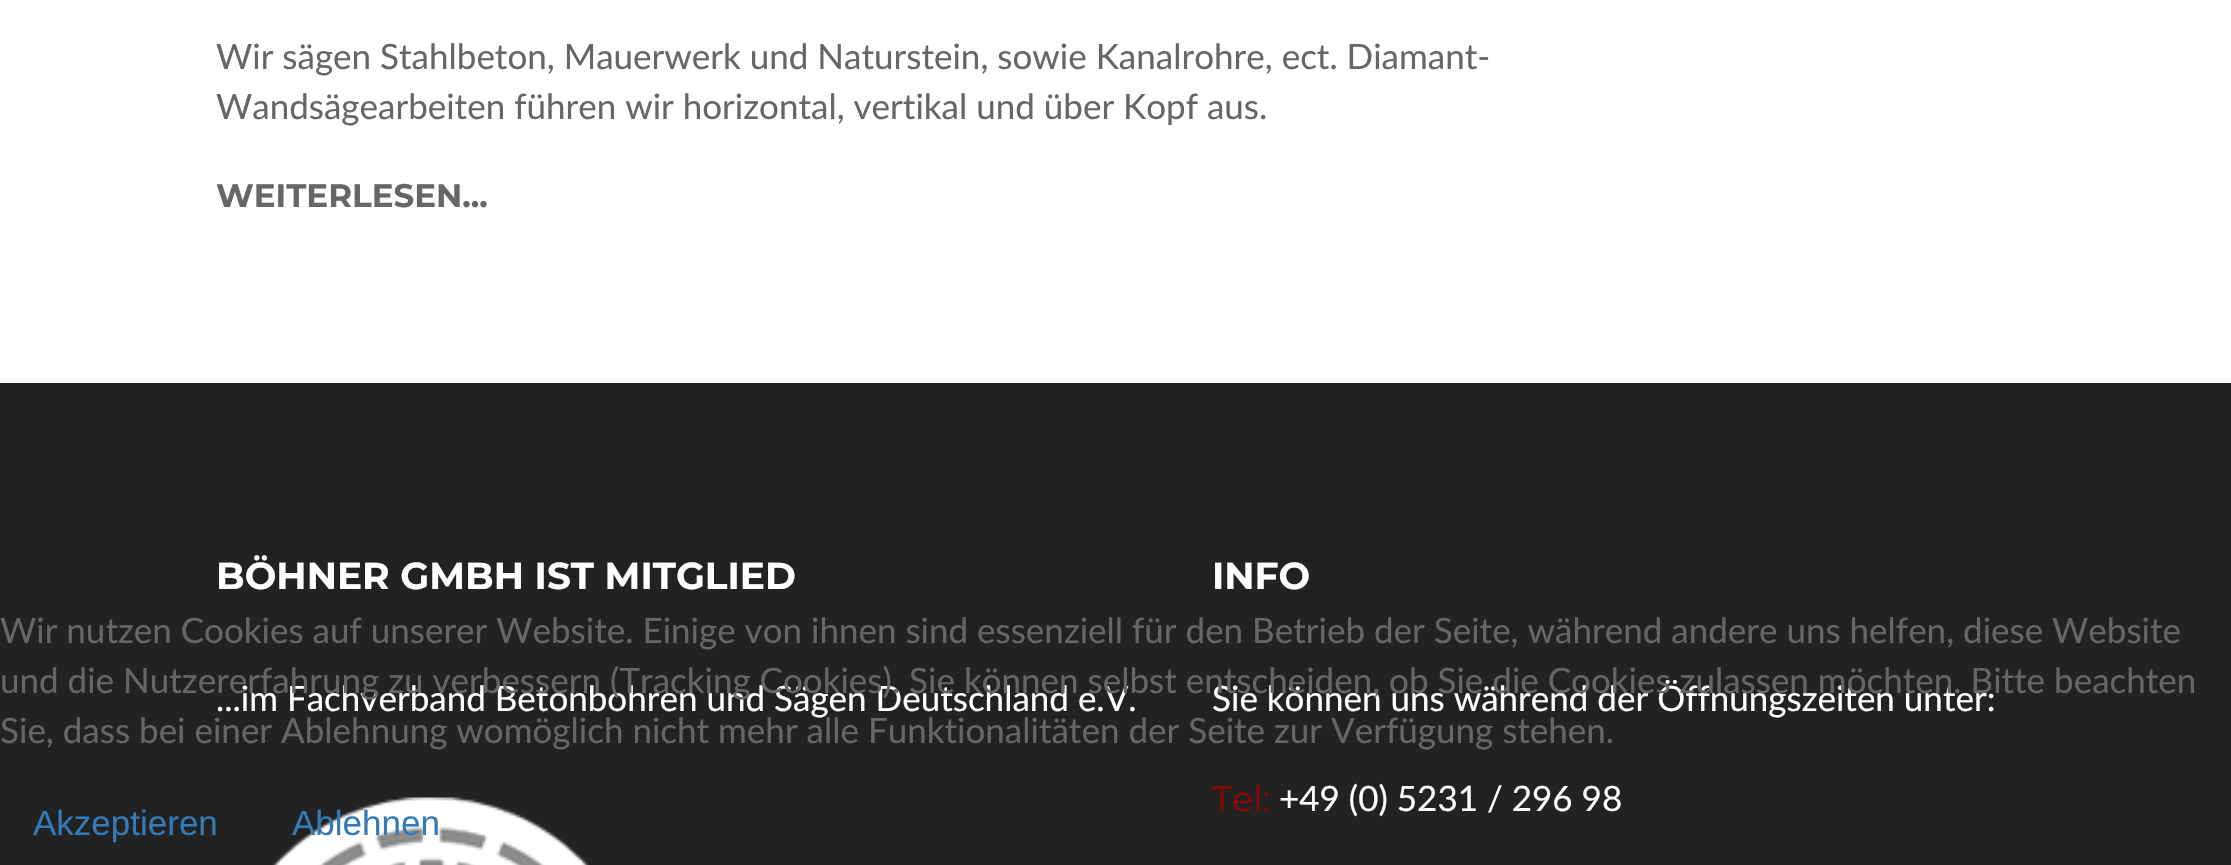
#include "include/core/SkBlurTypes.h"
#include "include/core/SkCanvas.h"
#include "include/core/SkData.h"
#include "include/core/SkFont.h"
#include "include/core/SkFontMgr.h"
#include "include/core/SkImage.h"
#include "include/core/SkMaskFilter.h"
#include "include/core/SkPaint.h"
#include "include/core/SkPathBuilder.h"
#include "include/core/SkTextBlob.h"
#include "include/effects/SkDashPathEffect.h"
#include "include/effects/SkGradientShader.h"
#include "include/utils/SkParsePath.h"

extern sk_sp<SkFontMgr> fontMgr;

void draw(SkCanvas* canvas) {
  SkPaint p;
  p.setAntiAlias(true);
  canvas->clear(SK_ColorWHITE);
  p.setColor(SkColorSetRGB(34, 34, 34));
  canvas->drawRect(SkRect::MakeLTRB(0, 383, 2231, 865), p);
  canvas->drawImageRect(SkImages::DeferredFromEncodedData(SkData::MakeFromFileName("images/1.png")), SkRect::MakeLTRB(272, 797, 589, 865), SkSamplingOptions());
  SkFont font1(fontMgr->matchFamilyStyle("Lato", SkFontStyle::Normal()), 35);
  font1.setSubpixel(true);
  p.setColor(SkColorSetRGB(102, 102, 102));
  canvas->drawString("Wir sägen Stahlbeton, Mauerwerk und Naturstein, sowie Kanalrohre, ect. Diamant-", 216, 69, font1, p);
  canvas->drawString("Wandsägearbeiten führen wir horizontal, vertikal und über Kopf aus.", 216, 119, font1, p);
  SkFont font2(fontMgr->matchFamilyStyle("Montserrat", SkFontStyle::Bold()), 32.5f);
  font2.setSubpixel(true);
  canvas->drawString("WEITERLESEN...", 216, 207, font2, p);
  SkFont font3(fontMgr->matchFamilyStyle("Montserrat", SkFontStyle::Bold()), 37.5f);
  font3.setSubpixel(true);
  p.setColor(SK_ColorWHITE);
  canvas->drawString("BÖHNER GMBH IST MITGLIED", 216, 589, font3, p);
  canvas->drawString("...im Fachverband Betonbohren und Sägen Deutschland e.V.", 216, 711, font1, p);
  canvas->drawString("INFO", 1212, 589, font3, p);
  canvas->drawString("Sie können uns während der Öffnungszeiten unter:", 1212, 711, font1, p);
  SkFont font4(fontMgr->matchFamilyStyle("Montserrat", SkFontStyle::Normal()), 35);
  font4.setSubpixel(true);
  p.setColor(SkColorSetRGB(151, 0, 1));
  canvas->drawString("Tel:", 1212, 811, font4, p);
  p.setColor(SK_ColorWHITE);
  canvas->drawString("+49 (0) 5231 / 296 98", 1279, 811, font1, p);
  p.setColor(SkColorSetRGB(102, 102, 102));
  canvas->drawString("Wir nutzen Cookies auf unserer Website. Einige von ihnen sind essenziell für den Betrieb der Seite, während andere uns helfen, diese Website", 0, 643, font1, p);
  canvas->drawString("und die Nutzererfahrung zu verbessern (Tracking Cookies). Sie können selbst entscheiden, ob Sie die Cookies zulassen möchten. Bitte beachten", 0, 693, font1, p);
  canvas->drawString("Sie, dass bei einer Ablehnung womöglich nicht mehr alle Funktionalitäten der Seite zur Verfügung stehen.", 0, 743, font1, p);
  SkFont font5(fontMgr->matchFamilyStyle("Liberation Sans", SkFontStyle::Normal()), 35);
  font5.setSubpixel(true);
  p.setColor(SkColorSetRGB(51, 122, 183));
  canvas->drawString("Akzeptieren", 33, 835, font5, p);
  canvas->drawString("Ablehnen", 292, 835, font5, p);
}
